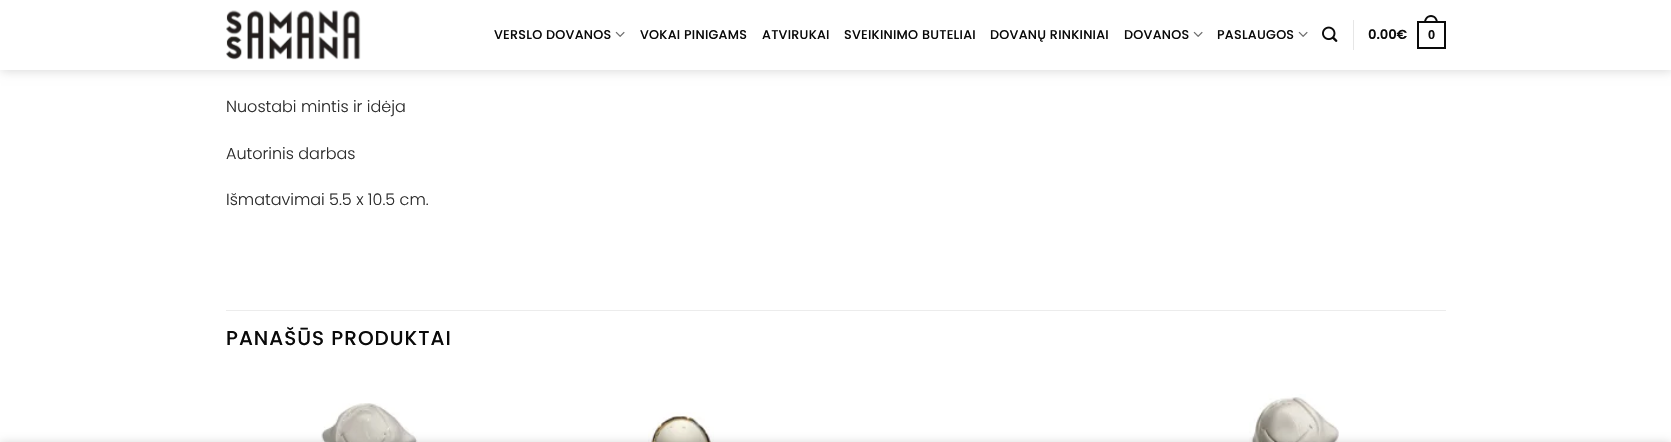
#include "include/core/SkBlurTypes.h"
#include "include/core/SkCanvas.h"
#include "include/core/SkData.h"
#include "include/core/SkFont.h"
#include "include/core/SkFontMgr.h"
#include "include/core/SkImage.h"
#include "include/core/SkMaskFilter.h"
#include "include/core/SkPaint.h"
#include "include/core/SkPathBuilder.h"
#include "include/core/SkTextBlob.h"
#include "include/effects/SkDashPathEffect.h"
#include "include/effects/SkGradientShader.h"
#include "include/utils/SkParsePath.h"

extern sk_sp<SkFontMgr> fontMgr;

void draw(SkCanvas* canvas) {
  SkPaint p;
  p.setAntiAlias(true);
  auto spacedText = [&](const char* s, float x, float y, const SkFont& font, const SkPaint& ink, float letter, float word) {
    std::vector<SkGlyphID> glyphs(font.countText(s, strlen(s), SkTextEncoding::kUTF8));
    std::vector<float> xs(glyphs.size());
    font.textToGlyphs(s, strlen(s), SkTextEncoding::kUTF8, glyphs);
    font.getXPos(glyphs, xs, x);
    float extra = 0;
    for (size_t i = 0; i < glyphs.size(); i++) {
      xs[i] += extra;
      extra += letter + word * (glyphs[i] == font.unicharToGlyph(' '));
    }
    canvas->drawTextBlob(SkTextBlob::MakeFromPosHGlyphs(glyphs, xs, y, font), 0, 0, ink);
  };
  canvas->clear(SK_ColorWHITE);
  p.setColor(SkColorSetARGB(38, 0, 0, 0));
  p.setMaskFilter(SkMaskFilter::MakeBlur(kNormal_SkBlurStyle, 5));
  canvas->drawRect(SkRect::MakeLTRB(1, 1, 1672, 71), p);
  p.setMaskFilter(nullptr);
  p.setColor(SK_ColorWHITE);
  canvas->drawRect(SkRect::MakeLTRB(0, 0, 1671, 70), p);
  canvas->drawImageRect(SkImages::DeferredFromEncodedData(SkData::MakeFromFileName("images/1.png")), SkRect::MakeLTRB(226, 10, 361, 60), SkSamplingOptions());
  canvas->drawImageRect(SkImages::DeferredFromEncodedData(SkData::MakeFromFileName("images/2.png")), SkRect::MakeLTRB(615, 31, 625, 37), SkSamplingOptions());
  canvas->drawImageRect(SkImages::DeferredFromEncodedData(SkData::MakeFromFileName("images/2.png")), SkRect::MakeLTRB(1193, 31, 1203, 37), SkSamplingOptions());
  canvas->drawImageRect(SkImages::DeferredFromEncodedData(SkData::MakeFromFileName("images/2.png")), SkRect::MakeLTRB(1298, 31, 1308, 37), SkSamplingOptions());
  canvas->drawImageRect(SkImages::DeferredFromEncodedData(SkData::MakeFromFileName("images/3.png")), SkRect::MakeLTRB(1322, 26, 1338, 42), SkSamplingOptions());
  p.setColor(SkColorSetRGB(230, 230, 230));
  canvas->drawRect(SkRect::MakeLTRB(1353, 20, 1354, 50), p);
  p.setStyle(SkPaint::kStroke_Style);
  p.setStrokeWidth(2);
  p.setColor(SkColorSetRGB(10, 10, 10));
  canvas->drawRect(SkRect::MakeLTRB(1418, 22, 1445, 48), p);
  p.setStyle(SkPaint::kFill_Style);
  canvas->drawPath(SkPathBuilder(SkPathFillType::kEvenOdd).moveTo(1431, 15).cubicTo(1435.5f, 15, 1438, 19, 1438, 23).lineTo(1424, 23).cubicTo(1424, 19, 1426.5f, 15, 1431, 15).close().moveTo(1431, 17).cubicTo(1434.5f, 17, 1436, 20, 1436, 23).lineTo(1426, 23).cubicTo(1426, 20, 1427.5f, 17, 1431, 17).close().detach(), p);
  p.setColor(SkColorSetRGB(236, 236, 236));
  canvas->drawRect(SkRect::MakeLTRB(226, 310, 1446, 311), p);
  canvas->drawImageRect(SkImages::DeferredFromEncodedData(SkData::MakeFromFileName("images/4.png")), SkRect::MakeLTRB(321, 403, 418, 442), SkSamplingOptions());
  canvas->drawImageRect(SkImages::DeferredFromEncodedData(SkData::MakeFromFileName("images/5.png")), SkRect::MakeLTRB(648, 412, 714, 442), SkSamplingOptions());
  canvas->drawImageRect(SkImages::DeferredFromEncodedData(SkData::MakeFromFileName("images/6.png")), SkRect::MakeLTRB(1249, 394, 1339, 442), SkSamplingOptions());
  p.setColor(SkColorSetARGB(36, 0, 0, 0));
  p.setMaskFilter(SkMaskFilter::MakeBlur(kNormal_SkBlurStyle, 4.5f));
  canvas->drawRect(SkRect::MakeLTRB(0, 442, 1671, 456), p);
  p.setMaskFilter(nullptr);
  SkFont font1(fontMgr->matchFamilyStyle("Poppins", SkFontStyle(500, SkFontStyle::kNormal_Width, SkFontStyle::kUpright_Slant)), 12.75f);
  font1.setSubpixel(true);
  p.setColor(SkColorSetRGB(10, 10, 10));
  spacedText("VERSLO DOVANOS", 494, 39, font1, p, 0.25f, 0);
  spacedText("VOKAI PINIGAMS", 640, 39, font1, p, 0.25f, 0);
  spacedText("ATVIRUKAI", 762, 39, font1, p, 0.25f, 0);
  spacedText("SVEIKINIMO BUTELIAI", 844, 39, font1, p, 0.25f, 0);
  spacedText("DOVANŲ RINKINIAI", 990, 39, font1, p, 0.25f, 0);
  spacedText("DOVANOS", 1124, 39, font1, p, 0.25f, 0);
  spacedText("PASLAUGOS", 1217, 39, font1, p, 0.25f, 0);
  SkFont font2(fontMgr->matchFamilyStyle("Poppins", SkFontStyle::Bold()), 12.75f);
  font2.setSubpixel(true);
  spacedText("0.00€", 1368, 39, font2, p, 0.25f, 0);
  SkFont font3(fontMgr->matchFamilyStyle("Liberation Sans", SkFontStyle::Bold()), 12.75f);
  font3.setSubpixel(true);
  spacedText("0", 1428, 39, font3, p, 0.25f, 0);
  SkFont font4(fontMgr->matchFamilyStyle("Poppins", SkFontStyle(300, SkFontStyle::kNormal_Width, SkFontStyle::kUpright_Slant)), 16);
  font4.setSubpixel(true);
  p.setColor(SkColorSetRGB(45, 45, 45));
  canvas->drawString("Nuostabi mintis ir idėja", 226, 112, font4, p);
  canvas->drawString("Autorinis darbas", 226, 159, font4, p);
  canvas->drawString("Išmatavimai 5.5 x 10.5 cm.", 226, 205, font4, p);
  SkFont font5(fontMgr->matchFamilyStyle("Poppins", SkFontStyle(500, SkFontStyle::kNormal_Width, SkFontStyle::kUpright_Slant)), 20);
  font5.setSubpixel(true);
  p.setColor(SkColorSetRGB(10, 10, 10));
  spacedText("PANAŠŪS PRODUKTAI", 226, 345, font5, p, 1, 0);
}
